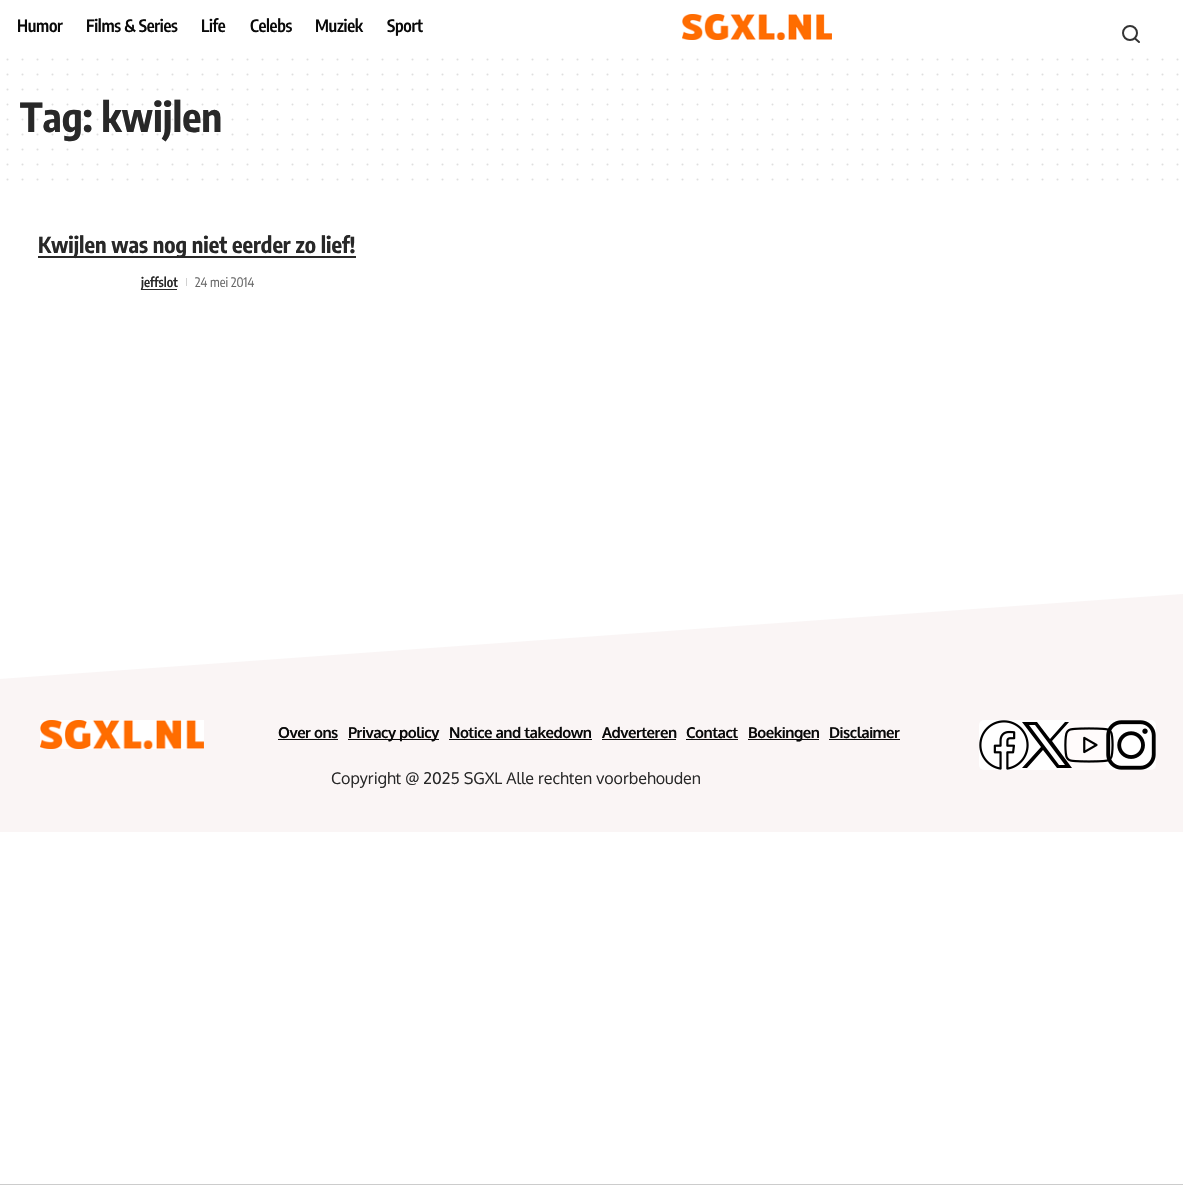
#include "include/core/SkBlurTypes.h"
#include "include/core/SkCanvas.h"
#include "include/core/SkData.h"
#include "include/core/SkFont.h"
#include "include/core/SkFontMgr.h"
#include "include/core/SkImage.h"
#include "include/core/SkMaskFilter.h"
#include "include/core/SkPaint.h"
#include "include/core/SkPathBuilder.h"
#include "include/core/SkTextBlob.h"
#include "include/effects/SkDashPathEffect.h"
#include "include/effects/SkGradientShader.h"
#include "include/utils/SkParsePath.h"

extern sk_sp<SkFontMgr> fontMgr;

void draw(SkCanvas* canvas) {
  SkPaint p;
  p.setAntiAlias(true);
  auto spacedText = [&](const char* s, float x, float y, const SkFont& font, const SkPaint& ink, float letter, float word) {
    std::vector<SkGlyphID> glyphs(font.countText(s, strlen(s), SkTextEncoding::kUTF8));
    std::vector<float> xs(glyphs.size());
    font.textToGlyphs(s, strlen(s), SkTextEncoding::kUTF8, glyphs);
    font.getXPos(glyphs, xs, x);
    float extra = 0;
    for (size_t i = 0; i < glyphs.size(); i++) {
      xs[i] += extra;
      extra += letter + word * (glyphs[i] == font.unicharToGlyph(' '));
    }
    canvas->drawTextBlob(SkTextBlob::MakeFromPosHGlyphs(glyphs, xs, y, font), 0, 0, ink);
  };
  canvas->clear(SK_ColorWHITE);
  canvas->drawImageRect(SkImages::DeferredFromEncodedData(SkData::MakeFromFileName("images/1.png")), SkRect::MakeLTRB(682, 14, 832, 40), SkSamplingOptions());
  p.setStyle(SkPaint::kStroke_Style);
  p.setStrokeWidth(2);
  p.setStrokeCap(SkPaint::kRound_Cap);
  p.setColor(SkColorSetRGB(223, 223, 223));
  p.setPathEffect(SkDashPathEffect::Make({{0, 15}}, 0));
  canvas->drawPath(SkPathBuilder().moveTo(7.5f, 59.5f).lineTo(1177.7f, 59.5f).detach(), p);
  p.setPathEffect(nullptr);
  p.setPathEffect(SkDashPathEffect::Make({{0, 15}}, 0));
  canvas->drawPath(SkPathBuilder().moveTo(7.5f, 74.5f).lineTo(1177.7f, 74.5f).detach(), p);
  p.setPathEffect(nullptr);
  p.setPathEffect(SkDashPathEffect::Make({{0, 15}}, 0));
  canvas->drawPath(SkPathBuilder().moveTo(7.5f, 89.5f).lineTo(1177.7f, 89.5f).detach(), p);
  p.setPathEffect(nullptr);
  p.setPathEffect(SkDashPathEffect::Make({{0, 15}}, 0));
  canvas->drawPath(SkPathBuilder().moveTo(7.5f, 149.5f).lineTo(1177.7f, 149.5f).detach(), p);
  p.setPathEffect(nullptr);
  p.setPathEffect(SkDashPathEffect::Make({{0, 15}}, 0));
  canvas->drawPath(SkPathBuilder().moveTo(7.5f, 164.5f).lineTo(1177.7f, 164.5f).detach(), p);
  p.setPathEffect(nullptr);
  p.setPathEffect(SkDashPathEffect::Make({{0, 15}}, 0));
  canvas->drawPath(SkPathBuilder().moveTo(7.5f, 179.5f).lineTo(1177.7f, 179.5f).detach(), p);
  p.setPathEffect(nullptr);
  p.setStyle(SkPaint::kFill_Style);
  p.setColor(SkColorSetRGB(40, 40, 40));
  canvas->drawRect(SkRect::MakeLTRB(38, 256, 356, 258), p);
  canvas->drawRect(SkRect::MakeLTRB(141, 289, 177, 290), p);
  p.setColor(SkColorSetRGB(209, 209, 209));
  canvas->drawRect(SkRect::MakeLTRB(186, 278, 187, 286), p);
  p.setColor(SkColorSetRGB(250, 245, 245));
  canvas->drawRect(SkRect::MakeLTRB(0, 594, 1183, 832), p);
  p.setColor(SK_ColorWHITE);
  canvas->drawPath(SkPathBuilder().moveTo(1183, 594).lineTo(1183, 589).lineTo(-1, 589).lineTo(-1, 679).close().detach(), p);
  canvas->drawImageRect(SkImages::DeferredFromEncodedData(SkData::MakeFromFileName("images/2.png")), SkRect::MakeLTRB(40, 720, 204, 749), SkSamplingOptions());
  p.setColor(SkColorSetRGB(10, 10, 10));
  canvas->drawRect(SkRect::MakeLTRB(278, 739, 338, 740), p);
  canvas->drawRect(SkRect::MakeLTRB(348, 739, 439, 740), p);
  canvas->drawRect(SkRect::MakeLTRB(449, 739, 592, 740), p);
  canvas->drawRect(SkRect::MakeLTRB(602, 739, 676, 740), p);
  canvas->drawRect(SkRect::MakeLTRB(686, 739, 738, 740), p);
  canvas->drawRect(SkRect::MakeLTRB(748, 739, 819, 740), p);
  canvas->drawRect(SkRect::MakeLTRB(829, 739, 900, 740), p);
  p.setColor(SK_ColorWHITE);
  canvas->drawRoundRect(SkRect::MakeLTRB(979, 720, 1029, 770), 5, 5, p);
  canvas->drawRoundRect(SkRect::MakeLTRB(1022, 720, 1072, 770), 5, 5, p);
  canvas->drawImageRect(SkImages::DeferredFromEncodedData(SkData::MakeFromFileName("images/3.png")), SkRect::MakeLTRB(979, 720, 1029, 770), SkSamplingOptions());
  p.setColor(SkColorSetRGB(255, 251, 251));
  canvas->drawRoundRect(SkRect::MakeLTRB(1064, 720, 1114, 770), 5, 5, p);
  p.setColor(SK_ColorBLACK);
  canvas->drawPath(SkPathBuilder().moveTo(1022, 722).lineTo(1041, 747).lineTo(1022, 768).lineTo(1027, 768).lineTo(1043, 750).lineTo(1057, 768).lineTo(1072, 768).lineTo(1052, 741).lineTo(1069, 722).lineTo(1065, 722).lineTo(1050, 739).lineTo(1037, 722).close().moveTo(1029, 725).lineTo(1035, 725).lineTo(1065, 765).lineTo(1059, 765).close().detach(), p);
  p.setColor(SK_ColorWHITE);
  canvas->drawRoundRect(SkRect::MakeLTRB(1106, 720, 1156, 770), 5, 5, p);
  canvas->drawImageRect(SkImages::DeferredFromEncodedData(SkData::MakeFromFileName("images/4.png")), SkRect::MakeLTRB(1064, 727, 1114, 763), SkSamplingOptions());
  canvas->drawImageRect(SkImages::DeferredFromEncodedData(SkData::MakeFromFileName("images/5.png")), SkRect::MakeLTRB(1106, 720, 1156, 770), SkSamplingOptions());
  p.setStyle(SkPaint::kStroke_Style);
  p.setStrokeCap(SkPaint::kButt_Cap);
  p.setColor(SkColorSetRGB(51, 51, 51));
  canvas->drawCircle(1130, 33, 7, p);
  p.setStrokeCap(SkPaint::kRound_Cap);
  canvas->drawPath(SkPathBuilder().moveTo(1135, 38.5f).lineTo(1139, 42).detach(), p);
  p.setStyle(SkPaint::kFill_Style);
  p.setColor(SkColorSetRGB(204, 204, 204));
  canvas->drawRect(SkRect::MakeLTRB(0, 1184, 1183, 1185), p);
  SkFont font1(fontMgr->matchFamilyStyle("Encode Sans Condensed", SkFontStyle(600, SkFontStyle::kNormal_Width, SkFontStyle::kUpright_Slant)), 17);
  font1.setSubpixel(true);
  p.setColor(SkColorSetRGB(10, 10, 10));
  spacedText("Humor", 17, 32, font1, p, -0.3f, 0);
  spacedText("Films & Series", 86, 32, font1, p, -0.3f, 0);
  spacedText("Life", 201, 32, font1, p, -0.3f, 0);
  spacedText("Celebs", 250, 32, font1, p, -0.3f, 0);
  spacedText("Muziek", 315, 32, font1, p, -0.3f, 0);
  spacedText("Sport", 387, 32, font1, p, -0.3f, 0);
  SkFont font2(fontMgr->matchFamilyStyle("Encode Sans Condensed", SkFontStyle::Bold()), 40);
  font2.setSubpixel(true);
  p.setColor(SkColorSetRGB(40, 40, 40));
  canvas->drawString("Tag: kwijlen", 20, 132, font2, p);
  p.setStyle(SkPaint::kStroke_Style);
  p.setColor(SkColorSetRGB(223, 223, 223));
  p.setPathEffect(SkDashPathEffect::Make({{0, 15}}, 0));
  canvas->drawPath(SkPathBuilder().moveTo(7.5f, 134.5f).lineTo(1177.7f, 134.5f).detach(), p);
  p.setPathEffect(nullptr);
  p.setColor(SkColorSetARGB(38, 40, 40, 40));
  p.setPathEffect(SkDashPathEffect::Make({{0, 15}}, 0));
  canvas->drawPath(SkPathBuilder().moveTo(7.5f, 119.5f).lineTo(1177.7f, 119.5f).detach(), p);
  p.setPathEffect(nullptr);
  p.setPathEffect(SkDashPathEffect::Make({{0, 15}}, 0));
  canvas->drawPath(SkPathBuilder().moveTo(7.5f, 104.5f).lineTo(1177.7f, 104.5f).detach(), p);
  p.setPathEffect(nullptr);
  SkFont font3(fontMgr->matchFamilyStyle("Encode Sans Condensed", SkFontStyle::Bold()), 22);
  font3.setSubpixel(true);
  p.setStyle(SkPaint::kFill_Style);
  p.setColor(SkColorSetRGB(40, 40, 40));
  canvas->drawString("Kwijlen was nog niet eerder zo lief!", 38, 253, font3, p);
  SkFont font4(fontMgr->matchFamilyStyle("Encode Sans Condensed", SkFontStyle(600, SkFontStyle::kNormal_Width, SkFontStyle::kUpright_Slant)), 13);
  font4.setSubpixel(true);
  canvas->drawString("jeffslot", 141, 287, font4, p);
  SkFont font5(fontMgr->matchFamilyStyle("Encode Sans Condensed", SkFontStyle::Normal()), 13);
  font5.setSubpixel(true);
  p.setColor(SkColorSetRGB(102, 102, 102));
  canvas->drawString("24 mei 2014", 195, 287, font5, p);
  SkFont font6(fontMgr->matchFamilyStyle("Oxygen", SkFontStyle::Bold()), 15);
  font6.setSubpixel(true);
  p.setColor(SkColorSetRGB(10, 10, 10));
  spacedText("Over ons", 278, 738, font6, p, -0.5f, 0);
  spacedText("Privacy policy", 348, 738, font6, p, -0.5f, 0);
  spacedText("Notice and takedown", 449, 738, font6, p, -0.5f, 0);
  spacedText("Adverteren", 602, 738, font6, p, -0.5f, 0);
  spacedText("Contact", 686, 738, font6, p, -0.5f, 0);
  spacedText("Boekingen", 748, 738, font6, p, -0.5f, 0);
  spacedText("Disclaimer", 829, 738, font6, p, -0.5f, 0);
  SkFont font7(fontMgr->matchFamilyStyle("Oxygen", SkFontStyle::Normal()), 16);
  font7.setSubpixel(true);
  p.setColor(SkColorSetRGB(40, 40, 40));
  canvas->drawString("Copyright @ 2025 SGXL Alle rechten voorbehouden", 331, 784, font7, p);
}
